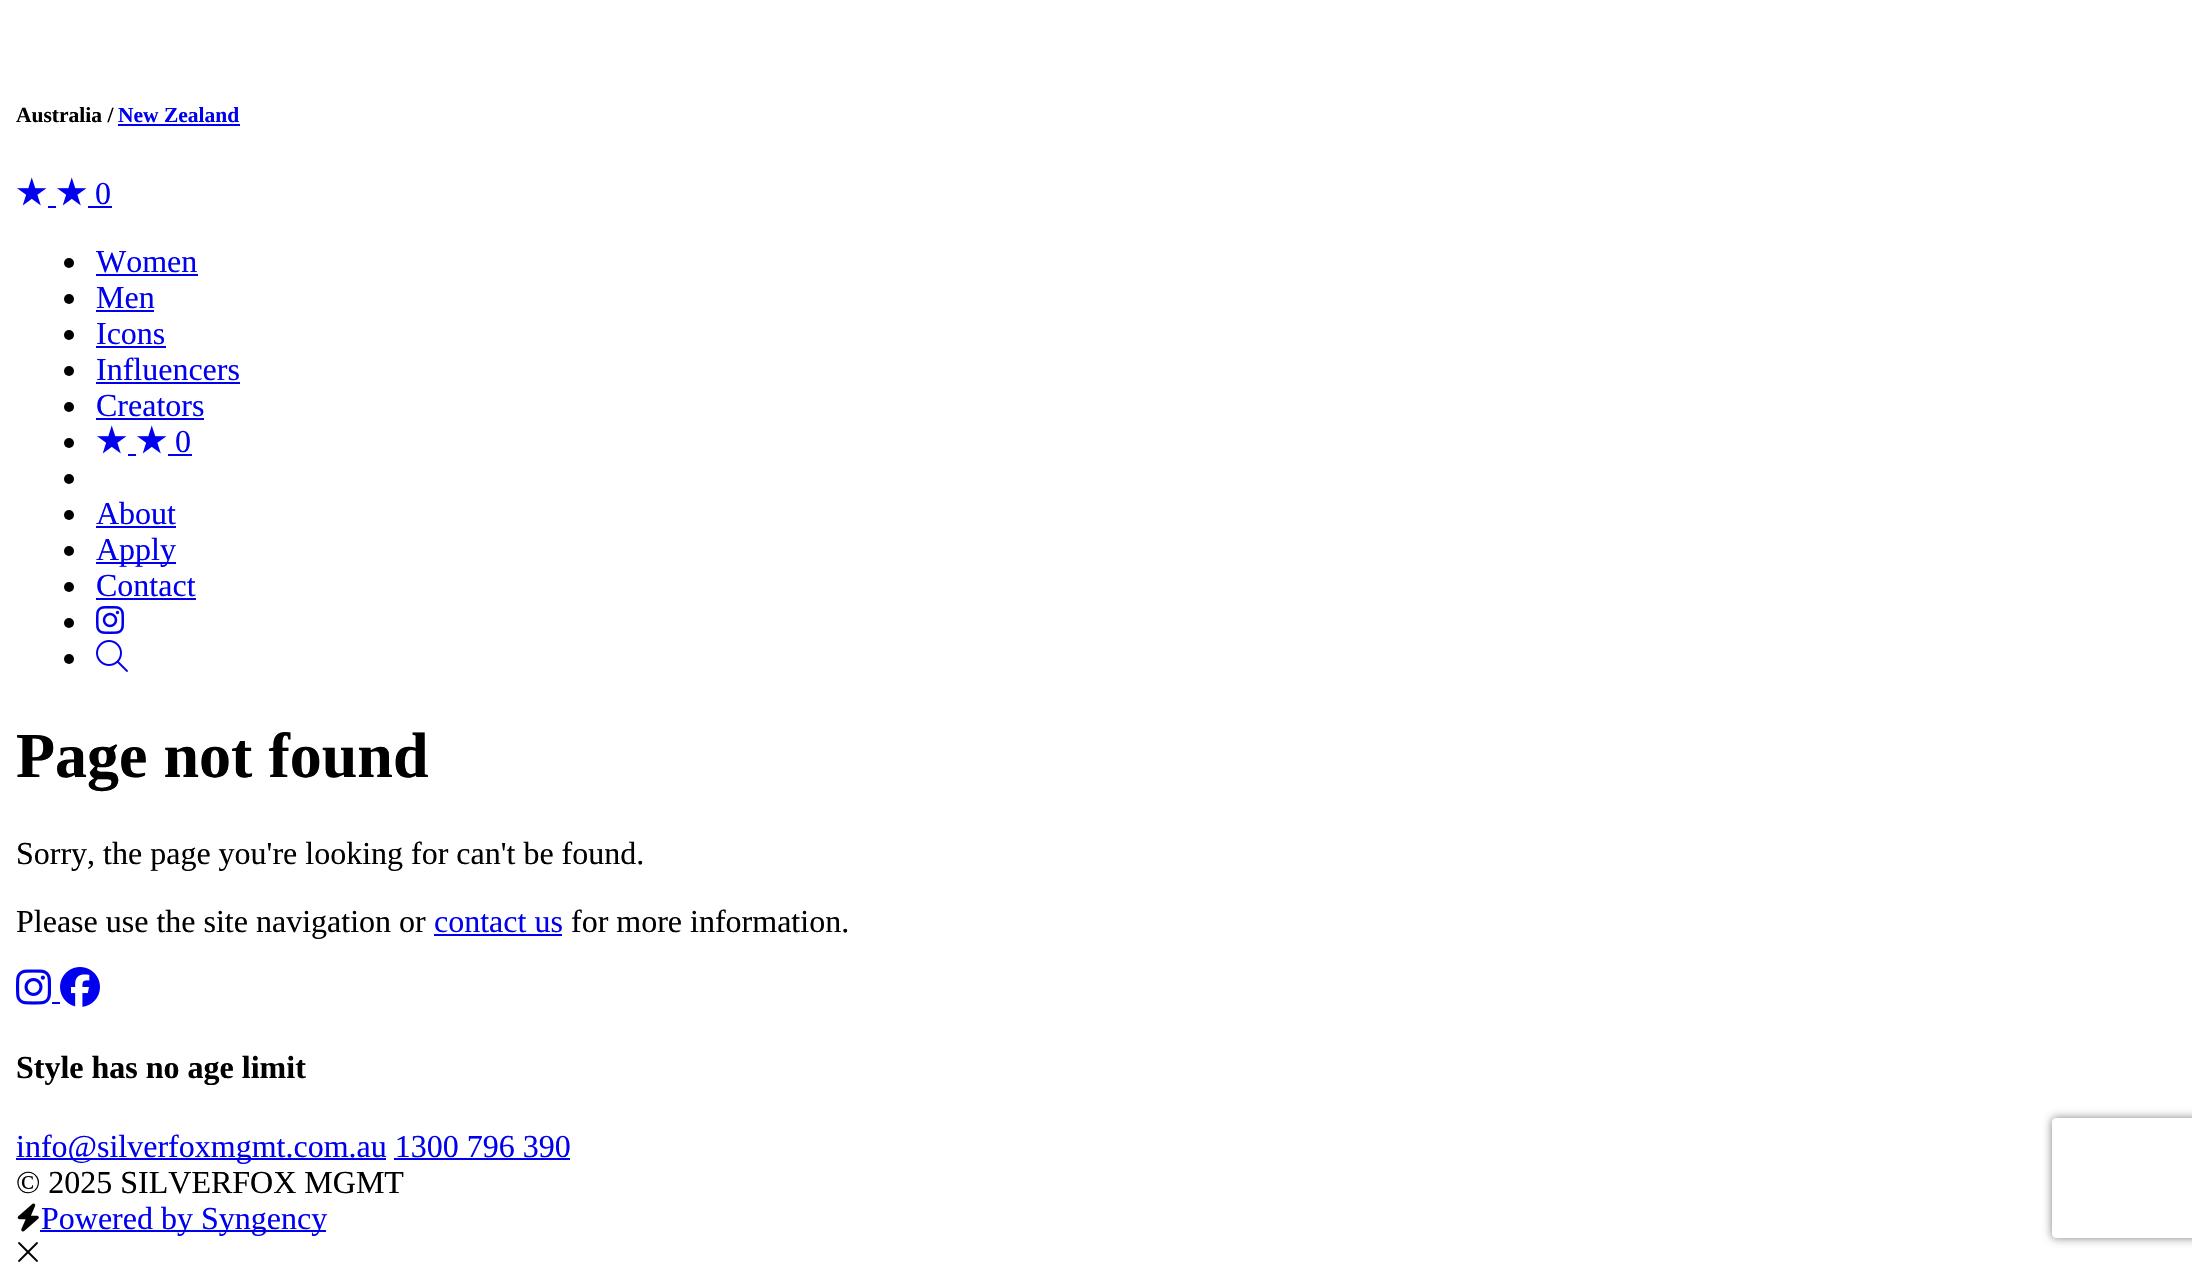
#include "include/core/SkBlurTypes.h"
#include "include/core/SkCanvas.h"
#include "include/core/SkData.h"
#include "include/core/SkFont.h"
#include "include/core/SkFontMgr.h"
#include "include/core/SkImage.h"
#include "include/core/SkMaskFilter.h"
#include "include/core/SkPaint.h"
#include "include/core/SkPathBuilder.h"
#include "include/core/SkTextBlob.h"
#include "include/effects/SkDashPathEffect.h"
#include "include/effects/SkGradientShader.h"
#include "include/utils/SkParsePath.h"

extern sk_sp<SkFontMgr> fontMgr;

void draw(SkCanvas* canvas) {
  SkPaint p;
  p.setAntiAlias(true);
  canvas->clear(SK_ColorWHITE);
  p.setColor(SkColorSetRGB(0, 0, 238));
  canvas->drawRect(SkRect::MakeLTRB(118, 124, 240, 126), p);
  canvas->drawImageRect(SkImages::DeferredFromEncodedData(SkData::MakeFromFileName("images/1.png")), SkRect::MakeLTRB(17, 177, 47, 206), SkSamplingOptions());
  canvas->drawImageRect(SkImages::DeferredFromEncodedData(SkData::MakeFromFileName("images/1.png")), SkRect::MakeLTRB(57, 177, 87, 206), SkSamplingOptions());
  canvas->drawRect(SkRect::MakeLTRB(48, 206, 56, 208), p);
  canvas->drawRect(SkRect::MakeLTRB(88, 206, 112, 208), p);
  p.setColor(SK_ColorBLACK);
  canvas->drawCircle(69, 263, 5, p);
  p.setColor(SkColorSetRGB(0, 0, 238));
  canvas->drawRect(SkRect::MakeLTRB(96, 274, 198, 276), p);
  p.setColor(SK_ColorBLACK);
  canvas->drawCircle(69, 299, 5, p);
  p.setColor(SkColorSetRGB(0, 0, 238));
  canvas->drawRect(SkRect::MakeLTRB(96, 310, 154, 312), p);
  p.setColor(SK_ColorBLACK);
  canvas->drawCircle(69, 335, 5, p);
  p.setColor(SkColorSetRGB(0, 0, 238));
  canvas->drawRect(SkRect::MakeLTRB(96, 346, 166, 348), p);
  p.setColor(SK_ColorBLACK);
  canvas->drawCircle(69, 371, 5, p);
  p.setColor(SkColorSetRGB(0, 0, 238));
  canvas->drawRect(SkRect::MakeLTRB(96, 382, 240, 384), p);
  p.setColor(SK_ColorBLACK);
  canvas->drawCircle(69, 407, 5, p);
  p.setColor(SkColorSetRGB(0, 0, 238));
  canvas->drawRect(SkRect::MakeLTRB(96, 418, 204, 420), p);
  p.setColor(SK_ColorBLACK);
  canvas->drawCircle(69, 443, 5, p);
  canvas->drawImageRect(SkImages::DeferredFromEncodedData(SkData::MakeFromFileName("images/1.png")), SkRect::MakeLTRB(97, 425, 127, 454), SkSamplingOptions());
  canvas->drawImageRect(SkImages::DeferredFromEncodedData(SkData::MakeFromFileName("images/1.png")), SkRect::MakeLTRB(137, 425, 167, 454), SkSamplingOptions());
  p.setColor(SkColorSetRGB(0, 0, 238));
  canvas->drawRect(SkRect::MakeLTRB(128, 454, 136, 456), p);
  canvas->drawRect(SkRect::MakeLTRB(168, 454, 192, 456), p);
  p.setColor(SK_ColorBLACK);
  canvas->drawCircle(69, 479, 5, p);
  canvas->drawCircle(69, 515, 5, p);
  p.setColor(SkColorSetRGB(0, 0, 238));
  canvas->drawRect(SkRect::MakeLTRB(96, 526, 176, 528), p);
  p.setColor(SK_ColorBLACK);
  canvas->drawCircle(69, 551, 5, p);
  p.setColor(SkColorSetRGB(0, 0, 238));
  canvas->drawRect(SkRect::MakeLTRB(96, 562, 176, 564), p);
  p.setColor(SK_ColorBLACK);
  canvas->drawCircle(69, 587, 5, p);
  p.setColor(SkColorSetRGB(0, 0, 238));
  canvas->drawRect(SkRect::MakeLTRB(96, 598, 196, 600), p);
  p.setColor(SK_ColorBLACK);
  canvas->drawCircle(69, 623, 5, p);
  canvas->drawImageRect(SkImages::DeferredFromEncodedData(SkData::MakeFromFileName("images/2.png")), SkRect::MakeLTRB(96, 606, 124, 634), SkSamplingOptions());
  canvas->drawCircle(69, 659, 5, p);
  canvas->drawImageRect(SkImages::DeferredFromEncodedData(SkData::MakeFromFileName("images/3.png")), SkRect::MakeLTRB(96, 640, 128, 672), SkSamplingOptions());
  p.setColor(SkColorSetRGB(0, 0, 238));
  canvas->drawRect(SkRect::MakeLTRB(434, 934, 562, 936), p);
  canvas->drawImageRect(SkImages::DeferredFromEncodedData(SkData::MakeFromFileName("images/4.png")), SkRect::MakeLTRB(16, 969, 51, 1005), SkSamplingOptions());
  canvas->drawRect(SkRect::MakeLTRB(52, 1002, 60, 1004), p);
  canvas->drawImageRect(SkImages::DeferredFromEncodedData(SkData::MakeFromFileName("images/5.png")), SkRect::MakeLTRB(60, 967, 100, 1007), SkSamplingOptions());
  canvas->drawRect(SkRect::MakeLTRB(16, 1158, 386, 1160), p);
  canvas->drawRect(SkRect::MakeLTRB(394, 1158, 570, 1160), p);
  canvas->drawImageRect(SkImages::DeferredFromEncodedData(SkData::MakeFromFileName("images/6.png")), SkRect::MakeLTRB(17, 1203, 39, 1232), SkSamplingOptions());
  canvas->drawRect(SkRect::MakeLTRB(40, 1230, 326, 1232), p);
  canvas->save();
  canvas->clipPath(SkPathBuilder(SkPathFillType::kEvenOdd).moveTo(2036, 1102).lineTo(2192, 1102).lineTo(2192, 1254).lineTo(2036, 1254).close().moveTo(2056, 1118).lineTo(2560, 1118).cubicTo(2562, 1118, 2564, 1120, 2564, 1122).lineTo(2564, 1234).cubicTo(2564, 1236, 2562, 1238, 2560, 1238).lineTo(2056, 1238).cubicTo(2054, 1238, 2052, 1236, 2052, 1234).lineTo(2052, 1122).cubicTo(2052, 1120, 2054, 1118, 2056, 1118).close().detach(), true);
  p.setColor(SkColorSetRGB(128, 128, 128));
  p.setMaskFilter(SkMaskFilter::MakeBlur(kNormal_SkBlurStyle, 5));
  canvas->drawRoundRect(SkRect::MakeLTRB(2052, 1118, 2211, 1238), 4, 4, p);
  p.setMaskFilter(nullptr);
  canvas->restore();
  canvas->drawImageRect(SkImages::DeferredFromEncodedData(SkData::MakeFromFileName("images/7.png")), SkRect::MakeLTRB(18, 1242, 38, 1262), SkSamplingOptions());
  SkFont font1(fontMgr->matchFamilyStyle("Liberation Serif", SkFontStyle::Bold()), 21.5f);
  font1.setSubpixel(true);
  p.setColor(SK_ColorBLACK);
  canvas->drawString("Australia /", 16, 122, font1, p);
  p.setColor(SkColorSetRGB(0, 0, 238));
  canvas->drawString("New Zealand", 118, 122, font1, p);
  SkFont font2(fontMgr->matchFamilyStyle("Liberation Serif", SkFontStyle::Normal()), 32);
  font2.setSubpixel(true);
  canvas->drawString("0", 95, 204, font2, p);
  canvas->drawString("Women", 96, 272, font2, p);
  canvas->drawString("Men", 96, 308, font2, p);
  canvas->drawString("Icons", 96, 344, font2, p);
  canvas->drawString("Influencers", 96, 380, font2, p);
  canvas->drawString("Creators", 96, 416, font2, p);
  canvas->drawString("0", 175, 452, font2, p);
  canvas->drawString("About", 96, 524, font2, p);
  canvas->drawString("Apply", 96, 560, font2, p);
  canvas->drawString("Contact", 96, 596, font2, p);
  SkFont font3(fontMgr->matchFamilyStyle("Liberation Serif", SkFontStyle::Bold()), 64);
  font3.setSubpixel(true);
  p.setColor(SK_ColorBLACK);
  canvas->drawString("Page not found", 16, 777, font3, p);
  canvas->drawString("Sorry, the page you're looking for can't be found.", 16, 864, font2, p);
  canvas->drawString("Please use the site navigation or", 16, 932, font2, p);
  p.setColor(SkColorSetRGB(0, 0, 238));
  canvas->drawString("contact us", 434, 932, font2, p);
  p.setColor(SK_ColorBLACK);
  canvas->drawString("for more information.", 571, 932, font2, p);
  SkFont font4(fontMgr->matchFamilyStyle("Liberation Serif", SkFontStyle::Bold()), 32);
  font4.setSubpixel(true);
  canvas->drawString("Style has no age limit", 16, 1078, font4, p);
  p.setColor(SkColorSetRGB(0, 0, 238));
  canvas->drawString("info@silverfoxmgmt.com.au 1300 796 390", 16, 1157, font2, p);
  p.setColor(SK_ColorBLACK);
  canvas->drawString("© 2025 SILVERFOX MGMT", 16, 1193, font2, p);
  p.setColor(SkColorSetRGB(0, 0, 238));
  canvas->drawString("Powered by Syngency", 41, 1229, font2, p);
}
